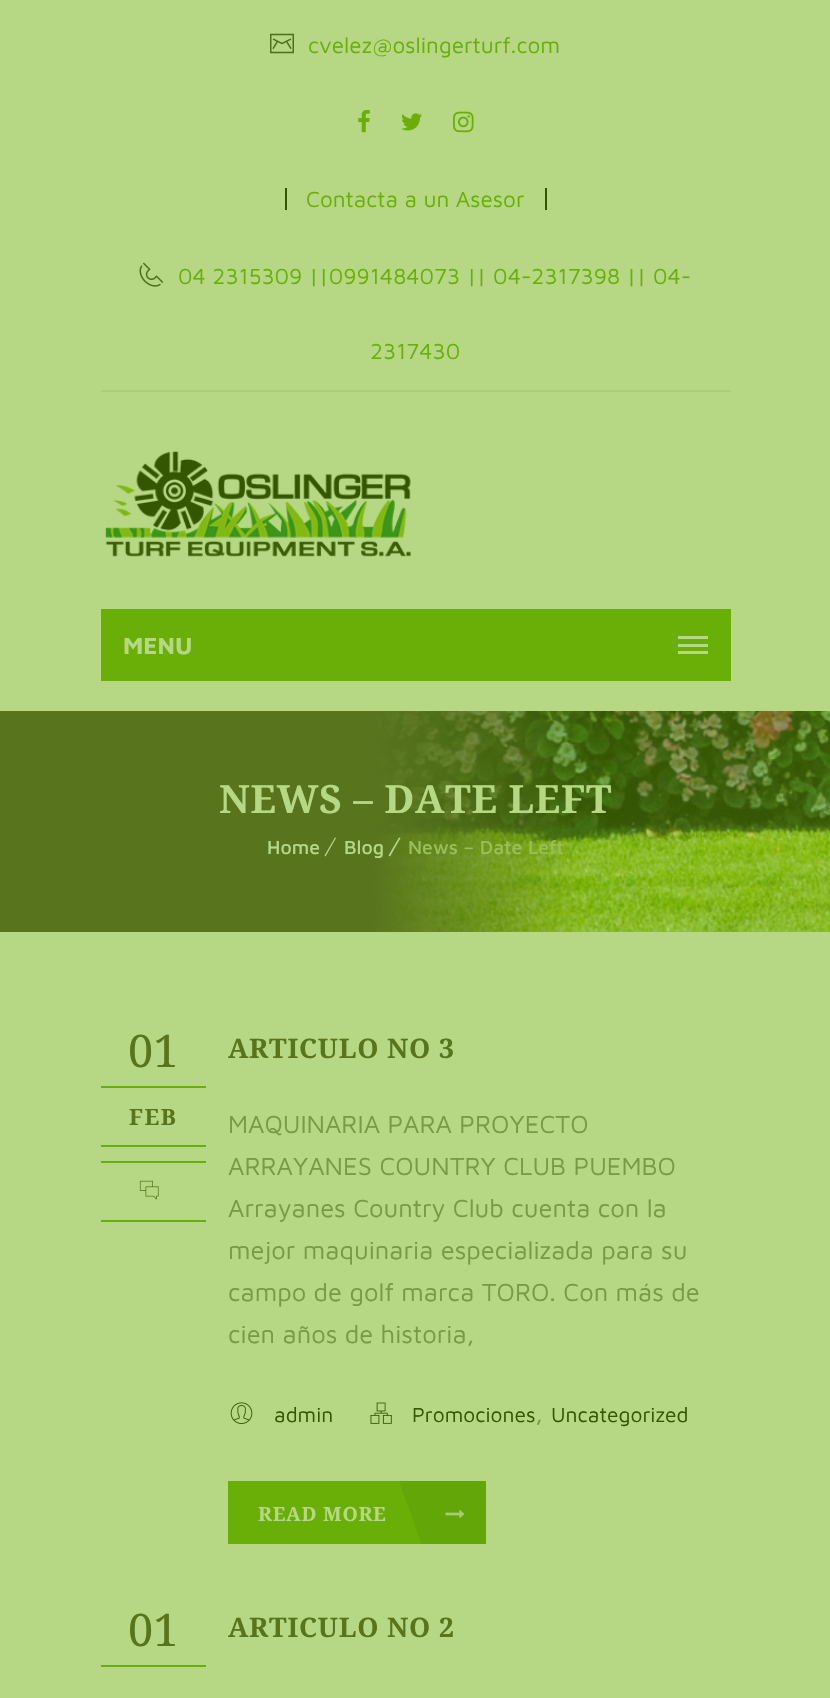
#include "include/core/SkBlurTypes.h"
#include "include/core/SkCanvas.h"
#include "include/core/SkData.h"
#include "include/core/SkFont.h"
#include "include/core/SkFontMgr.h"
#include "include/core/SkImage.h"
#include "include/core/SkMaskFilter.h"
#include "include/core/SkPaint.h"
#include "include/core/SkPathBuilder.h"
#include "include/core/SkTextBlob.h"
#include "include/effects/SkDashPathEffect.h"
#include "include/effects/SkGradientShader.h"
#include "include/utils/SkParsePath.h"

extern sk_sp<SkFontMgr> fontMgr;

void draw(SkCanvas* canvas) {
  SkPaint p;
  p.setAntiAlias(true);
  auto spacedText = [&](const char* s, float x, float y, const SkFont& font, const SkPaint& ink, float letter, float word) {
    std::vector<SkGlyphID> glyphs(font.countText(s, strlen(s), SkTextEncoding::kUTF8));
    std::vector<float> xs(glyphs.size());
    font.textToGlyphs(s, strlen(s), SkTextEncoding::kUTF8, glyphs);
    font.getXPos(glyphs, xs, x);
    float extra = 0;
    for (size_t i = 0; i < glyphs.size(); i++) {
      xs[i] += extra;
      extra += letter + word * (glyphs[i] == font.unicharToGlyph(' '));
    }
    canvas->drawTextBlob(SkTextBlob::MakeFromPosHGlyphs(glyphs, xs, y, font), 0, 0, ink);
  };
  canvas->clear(SkColorSetRGB(182, 216, 133));
  p.setColor(SkColorSetRGB(171, 205, 120));
  canvas->drawRect(SkRect::MakeLTRB(101, 390, 731, 392), p);
  canvas->drawImageRect(SkImages::DeferredFromEncodedData(SkData::MakeFromFileName("images/1.png")), SkRect::MakeLTRB(270, 33, 294, 54), SkSamplingOptions());
  canvas->drawImageRect(SkImages::DeferredFromEncodedData(SkData::MakeFromFileName("images/2.png")), SkRect::MakeLTRB(358, 109, 370, 133), SkSamplingOptions());
  canvas->drawImageRect(SkImages::DeferredFromEncodedData(SkData::MakeFromFileName("images/3.png")), SkRect::MakeLTRB(401, 113, 422, 131), SkSamplingOptions());
  canvas->drawImageRect(SkImages::DeferredFromEncodedData(SkData::MakeFromFileName("images/4.png")), SkRect::MakeLTRB(453, 111, 474, 133), SkSamplingOptions());
  p.setColor(SkColorSetRGB(51, 86, 3));
  canvas->drawRect(SkRect::MakeLTRB(285, 188, 287, 210), p);
  canvas->drawRect(SkRect::MakeLTRB(545, 188, 547, 210), p);
  canvas->drawImageRect(SkImages::DeferredFromEncodedData(SkData::MakeFromFileName("images/5.png")), SkRect::MakeLTRB(139, 262, 164, 287), SkSamplingOptions());
  canvas->drawImageRect(SkImages::DeferredFromEncodedData(SkData::MakeFromFileName("images/6.png")), SkRect::MakeLTRB(105, 451, 411, 557), SkSamplingOptions());
  p.setColor(SkColorSetRGB(105, 175, 7));
  canvas->drawRect(SkRect::MakeLTRB(101, 609, 731, 681), p);
  p.setColor(SkColorSetRGB(182, 216, 133));
  canvas->drawRect(SkRect::MakeLTRB(678, 644, 708, 647), p);
  canvas->drawRect(SkRect::MakeLTRB(678, 636, 708, 639), p);
  canvas->drawRect(SkRect::MakeLTRB(678, 651, 708, 654), p);
  p.setColor(SkColorSetRGB(143, 177, 95));
  canvas->drawRect(SkRect::MakeLTRB(375, 931, 830, 932), p);
  canvas->drawImageRect(SkImages::DeferredFromEncodedData(SkData::MakeFromFileName("images/7.png")), SkRect::MakeLTRB(375, 711, 830, 932), SkSamplingOptions());
  {
    const SkColor colors[] = {SkColorSetRGB(88, 116, 29), SkColorSetARGB(0, 88, 116, 29)};
    const float stops[] = {0.45f, 0.7f};
    const SkPoint ends[] = {{0, 821}, {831, 821}};
    p.setShader(SkGradientShader::MakeLinear(ends, colors, stops, 2, SkTileMode::kClamp));
    p.setAlpha(255);
  }
  canvas->drawRect(SkRect::MakeLTRB(0, 711, 576, 932), p);
  p.setShader(nullptr);
  p.setColor(SkColorSetRGB(182, 216, 133));
  canvas->drawPath(SkPathBuilder().moveTo(335, 837.5f).lineTo(336, 838).lineTo(325.5f, 856.5f).lineTo(324.5f, 855.5f).close().detach(), p);
  canvas->drawPath(SkPathBuilder().moveTo(399, 837.5f).lineTo(400.5f, 838).lineTo(390, 856.5f).lineTo(388.5f, 855.5f).close().detach(), p);
  p.setColor(SkColorSetRGB(105, 175, 7));
  canvas->drawRect(SkRect::MakeLTRB(101, 1086, 206, 1088), p);
  canvas->drawRect(SkRect::MakeLTRB(101, 1145, 206, 1147), p);
  canvas->drawRect(SkRect::MakeLTRB(101, 1161, 206, 1163), p);
  canvas->drawRect(SkRect::MakeLTRB(101, 1220, 206, 1222), p);
  canvas->drawImageRect(SkImages::DeferredFromEncodedData(SkData::MakeFromFileName("images/8.png")), SkRect::MakeLTRB(139, 1180, 159, 1200), SkSamplingOptions());
  canvas->drawImageRect(SkImages::DeferredFromEncodedData(SkData::MakeFromFileName("images/9.png")), SkRect::MakeLTRB(230, 1402, 253, 1424), SkSamplingOptions());
  canvas->drawImageRect(SkImages::DeferredFromEncodedData(SkData::MakeFromFileName("images/10.png")), SkRect::MakeLTRB(370, 1402, 392, 1424), SkSamplingOptions());
  canvas->drawRect(SkRect::MakeLTRB(228, 1481, 486, 1544), p);
  canvas->drawImageRect(SkImages::DeferredFromEncodedData(SkData::MakeFromFileName("images/11.png")), SkRect::MakeLTRB(445, 1509, 465, 1519), SkSamplingOptions());
  canvas->save();
  canvas->clipRect(SkRect::MakeLTRB(228, 1481, 486, 1544));
  p.setColor(SkColorSetARGB(26, 51, 86, 3));
  canvas->drawPath(SkPathBuilder().moveTo(396, 1473).lineTo(481, 1443).lineTo(524, 1561).lineTo(439, 1592).close().detach(), p);
  canvas->restore();
  p.setColor(SkColorSetRGB(105, 175, 7));
  canvas->drawRect(SkRect::MakeLTRB(101, 1665, 206, 1667), p);
  SkFont font1(fontMgr->matchFamilyStyle("Maven Pro", SkFontStyle::Normal()), 22.5f);
  font1.setSubpixel(true);
  canvas->drawString("cvelez@oslingerturf.com", 308, 53, font1, p);
  canvas->drawString("Contacta a un Asesor", 306, 207, font1, p);
  canvas->drawString("04 2315309 ||0991484073 || 04-2317398 || 04-", 178, 284, font1, p);
  canvas->drawString("2317430", 370, 359, font1, p);
  SkFont font2(fontMgr->matchFamilyStyle("Maven Pro", SkFontStyle::Bold()), 24);
  font2.setSubpixel(true);
  p.setColor(SkColorSetRGB(182, 216, 133));
  canvas->drawString("MENU", 123, 654, font2, p);
  SkFont font3(fontMgr->matchFamilyStyle("Noto Serif", SkFontStyle::Bold()), 39);
  font3.setSubpixel(true);
  spacedText("NEWS – DATE LEFT", 219, 813, font3, p, 0.75f, 0);
  SkFont font4(fontMgr->matchFamilyStyle("Maven Pro", SkFontStyle(500, SkFontStyle::kNormal_Width, SkFontStyle::kUpright_Slant)), 19.5f);
  font4.setSubpixel(true);
  canvas->drawString("Home", 267, 854, font4, p);
  canvas->drawString("Blog", 344, 854, font4, p);
  p.setColor(SkColorSetRGB(153, 190, 92));
  canvas->drawString("News – Date Left", 408, 854, font4, p);
  SkFont font5(fontMgr->matchFamilyStyle("Noto Serif", SkFontStyle::Normal()), 45);
  font5.setSubpixel(true);
  p.setColor(SkColorSetRGB(88, 116, 29));
  canvas->drawString("01", 128, 1067, font5, p);
  SkFont font6(fontMgr->matchFamilyStyle("Noto Serif", SkFontStyle::Bold()), 22.5f);
  font6.setSubpixel(true);
  spacedText("FEB", 129, 1125, font6, p, 1.5f, 0);
  SkFont font7(fontMgr->matchFamilyStyle("Noto Serif", SkFontStyle::Bold()), 27);
  font7.setSubpixel(true);
  spacedText("ARTICULO NO 3", 228, 1058, font7, p, 0.75f, 0);
  SkFont font8(fontMgr->matchFamilyStyle("Maven Pro", SkFontStyle::Normal()), 25.5f);
  font8.setSubpixel(true);
  p.setColor(SkColorSetRGB(119, 154, 71));
  canvas->drawString("MAQUINARIA PARA PROYECTO", 228, 1133, font8, p);
  canvas->drawString("ARRAYANES COUNTRY CLUB PUEMBO", 228, 1175, font8, p);
  canvas->drawString("Arrayanes Country Club cuenta con la", 228, 1217, font8, p);
  canvas->drawString("mejor maquinaria especializada para su", 228, 1259, font8, p);
  canvas->drawString("campo de golf marca TORO. Con más de", 228, 1301, font8, p);
  canvas->drawString("cien años de historia,", 228, 1343, font8, p);
  SkFont font9(fontMgr->matchFamilyStyle("Maven Pro", SkFontStyle::Normal()), 21);
  font9.setSubpixel(true);
  p.setColor(SkColorSetRGB(51, 86, 3));
  canvas->drawString("admin", 274, 1422, font9, p);
  canvas->drawString("Promociones", 412, 1422, font9, p);
  p.setColor(SkColorSetRGB(119, 154, 71));
  canvas->drawString(",", 535, 1422, font8, p);
  p.setColor(SkColorSetRGB(51, 86, 3));
  canvas->drawString("Uncategorized", 551, 1422, font9, p);
  SkFont font10(fontMgr->matchFamilyStyle("Noto Serif", SkFontStyle::Bold()), 19.5f);
  font10.setSubpixel(true);
  p.setColor(SkColorSetRGB(182, 216, 133));
  spacedText("READ MORE", 258, 1521, font10, p, 0.75f, 0);
  p.setColor(SkColorSetRGB(88, 116, 29));
  canvas->drawString("01", 128, 1646, font5, p);
  spacedText("ARTICULO NO 2", 228, 1637, font7, p, 0.75f, 0);
}
